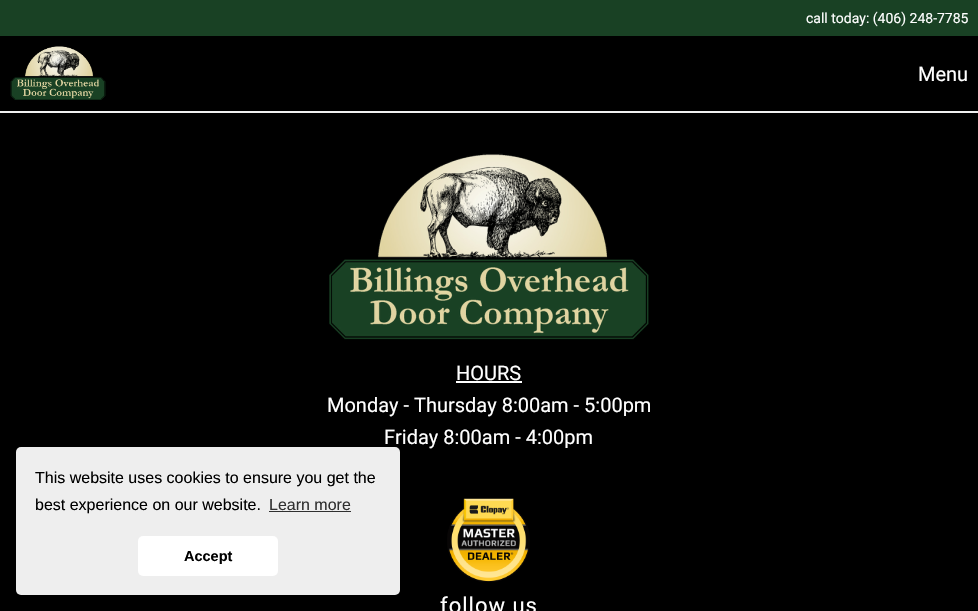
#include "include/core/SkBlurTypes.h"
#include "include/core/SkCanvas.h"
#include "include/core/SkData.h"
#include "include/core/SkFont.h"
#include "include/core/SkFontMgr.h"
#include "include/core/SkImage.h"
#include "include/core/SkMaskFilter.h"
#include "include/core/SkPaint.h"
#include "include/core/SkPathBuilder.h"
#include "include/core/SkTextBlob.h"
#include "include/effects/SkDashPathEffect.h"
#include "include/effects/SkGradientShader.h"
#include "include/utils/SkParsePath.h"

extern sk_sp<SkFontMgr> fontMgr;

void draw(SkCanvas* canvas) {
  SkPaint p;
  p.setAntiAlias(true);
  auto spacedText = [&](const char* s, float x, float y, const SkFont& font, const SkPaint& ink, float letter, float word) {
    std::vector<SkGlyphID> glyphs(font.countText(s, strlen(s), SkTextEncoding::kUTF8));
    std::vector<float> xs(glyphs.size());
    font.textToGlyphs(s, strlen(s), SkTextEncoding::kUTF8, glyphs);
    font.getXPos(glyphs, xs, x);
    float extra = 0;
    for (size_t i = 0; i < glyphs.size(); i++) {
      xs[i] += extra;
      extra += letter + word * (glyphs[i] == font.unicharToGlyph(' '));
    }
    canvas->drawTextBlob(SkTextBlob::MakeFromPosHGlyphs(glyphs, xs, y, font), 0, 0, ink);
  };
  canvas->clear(SkColorSetRGB(240, 240, 240));
  p.setColor(SkColorSetRGB(25, 65, 36));
  canvas->drawRect(SkRect::MakeLTRB(0, 0, 978, 36), p);
  p.setColor(SK_ColorBLACK);
  canvas->drawRect(SkRect::MakeLTRB(0, 36, 978, 111), p);
  canvas->drawImageRect(SkImages::DeferredFromEncodedData(SkData::MakeFromFileName("images/1.png")), SkRect::MakeLTRB(10, 46, 106, 100), SkSamplingOptions());
  canvas->drawRect(SkRect::MakeLTRB(0, 113, 978, 611), p);
  canvas->drawImageRect(SkImages::DeferredFromEncodedData(SkData::MakeFromFileName("images/2.png")), SkRect::MakeLTRB(329, 153, 649, 340), SkSamplingOptions());
  p.setColor(SK_ColorWHITE);
  canvas->drawRect(SkRect::MakeLTRB(456, 381, 522, 383), p);
  canvas->drawImageRect(SkImages::DeferredFromEncodedData(SkData::MakeFromFileName("images/3.png")), SkRect::MakeLTRB(447, 498, 530, 582), SkSamplingOptions());
  SkFont font1(fontMgr->matchFamilyStyle("Roboto", SkFontStyle::Normal()), 14);
  font1.setSubpixel(true);
  canvas->drawString("call today: (406) 248-7785", 806, 23, font1, p);
  SkFont font2(fontMgr->matchFamilyStyle("Roboto", SkFontStyle::Normal()), 20);
  font2.setSubpixel(true);
  canvas->drawString("Menu", 918, 81, font2, p);
  canvas->drawString("HOURS", 456, 380, font2, p);
  canvas->drawString("Monday - Thursday 8:00am - 5:00pm", 327, 412, font2, p);
  canvas->drawString("Friday 8:00am - 4:00pm", 384, 444, font2, p);
  p.setColor(SkColorSetRGB(238, 238, 238));
  canvas->drawRoundRect(SkRect::MakeLTRB(16, 447, 400, 595), 5, 5, p);
  SkFont font3(fontMgr->matchFamilyStyle("Liberation Sans", SkFontStyle::Normal()), 16);
  font3.setSubpixel(true);
  p.setColor(SkColorSetRGB(48, 48, 48));
  canvas->drawString("Learn more", 269, 510, font3, p);
  canvas->drawRect(SkRect::MakeLTRB(269, 511, 351, 512), p);
  p.setColor(SK_ColorWHITE);
  canvas->drawRoundRect(SkRect::MakeLTRB(138, 536, 278, 576), 5, 5, p);
  SkFont font4(fontMgr->matchFamilyStyle("Liberation Sans", SkFontStyle::Bold()), 14.5f);
  font4.setSubpixel(true);
  p.setColor(SK_ColorBLACK);
  canvas->drawString("Accept", 184, 561, font4, p);
  canvas->drawString("best experience on our website.", 35, 510, font3, p);
  canvas->drawString("This website uses cookies to ensure you get the", 35, 483, font3, p);
  SkFont font5(fontMgr->matchFamilyStyle("Roboto", SkFontStyle::Normal()), 22);
  font5.setSubpixel(true);
  p.setColor(SK_ColorWHITE);
  spacedText("follow us", 440, 613, font5, p, 1, 0);
}
